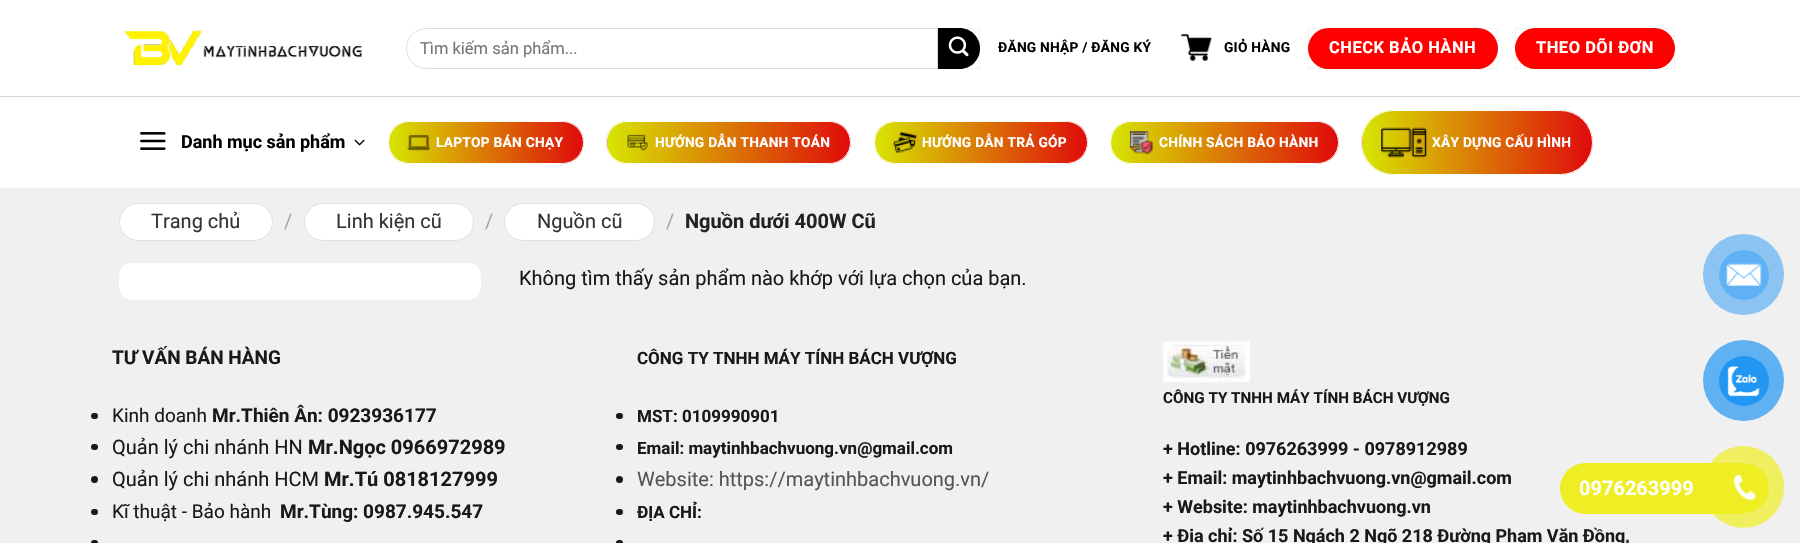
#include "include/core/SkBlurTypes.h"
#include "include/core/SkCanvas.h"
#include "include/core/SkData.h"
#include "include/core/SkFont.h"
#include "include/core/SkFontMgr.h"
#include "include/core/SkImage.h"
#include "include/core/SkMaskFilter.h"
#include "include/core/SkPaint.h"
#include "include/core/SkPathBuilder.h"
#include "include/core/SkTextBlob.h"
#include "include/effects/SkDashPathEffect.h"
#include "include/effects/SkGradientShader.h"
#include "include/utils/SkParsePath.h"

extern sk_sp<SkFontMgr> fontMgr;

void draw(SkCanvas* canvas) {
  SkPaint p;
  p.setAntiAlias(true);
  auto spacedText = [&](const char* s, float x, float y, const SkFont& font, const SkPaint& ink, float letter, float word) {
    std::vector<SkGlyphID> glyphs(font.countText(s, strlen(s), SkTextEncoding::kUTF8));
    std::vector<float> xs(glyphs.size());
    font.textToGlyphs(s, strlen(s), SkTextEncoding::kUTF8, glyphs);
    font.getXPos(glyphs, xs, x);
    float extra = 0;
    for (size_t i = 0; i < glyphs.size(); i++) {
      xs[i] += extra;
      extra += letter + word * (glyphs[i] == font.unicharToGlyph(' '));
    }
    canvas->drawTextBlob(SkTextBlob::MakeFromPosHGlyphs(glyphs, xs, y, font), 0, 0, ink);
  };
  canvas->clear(SkColorSetRGB(241, 240, 241));
  p.setColor(SK_ColorWHITE);
  canvas->drawRect(SkRect::MakeLTRB(0, 0, 1800, 188), p);
  p.setColor(SkColorSetRGB(212, 212, 212));
  canvas->drawRect(SkRect::MakeLTRB(0, 96, 1800, 97), p);
  canvas->drawImageRect(SkImages::DeferredFromEncodedData(SkData::MakeFromFileName("images/1.png")), SkRect::MakeLTRB(124, 30, 362, 66), SkSamplingOptions());
  p.setStyle(SkPaint::kStroke_Style);
  p.setStrokeWidth(1);
  p.setColor(SkColorSetRGB(221, 221, 221));
  canvas->drawPath(SkPathBuilder().moveTo(426.5f, 28.5f).lineTo(937.5f, 28.5f).lineTo(937.5f, 68.5f).lineTo(426.5f, 68.5f).cubicTo(415.5f, 68.5f, 406.5f, 59.5f, 406.5f, 48.5f).cubicTo(406.5f, 37.5f, 415.5f, 28.5f, 426.5f, 28.5f).close().detach(), p);
  p.setStyle(SkPaint::kFill_Style);
  p.setColor(SK_ColorBLACK);
  canvas->drawPath(SkPathBuilder().moveTo(938, 28).lineTo(959.5f, 28).cubicTo(971, 28, 980, 37, 980, 48.5f).cubicTo(980, 60, 971, 69, 959.5f, 69).lineTo(938, 69).close().detach(), p);
  p.setStyle(SkPaint::kStroke_Style);
  p.setColor(SkColorSetARGB(13, 0, 0, 0));
  canvas->drawRect(SkRect::MakeLTRB(938.5f, 28.5f, 979.5f, 68.5f), p);
  canvas->drawImageRect(SkImages::DeferredFromEncodedData(SkData::MakeFromFileName("images/2.png")), SkRect::MakeLTRB(948, 36, 969, 57), SkSamplingOptions());
  canvas->drawImageRect(SkImages::DeferredFromEncodedData(SkData::MakeFromFileName("images/3.png")), SkRect::MakeLTRB(1181, 33, 1212, 61), SkSamplingOptions());
  p.setStyle(SkPaint::kFill_Style);
  p.setColor(SkColorSetRGB(255, 0, 0));
  canvas->drawRoundRect(SkRect::MakeLTRB(1308, 28, 1498, 69), 20.5f, 20.5f, p);
  p.setStyle(SkPaint::kStroke_Style);
  p.setColor(SkColorSetARGB(13, 0, 0, 0));
  canvas->drawRect(SkRect::MakeLTRB(1308.5f, 28.5f, 1497.5f, 68.5f), p);
  p.setStyle(SkPaint::kFill_Style);
  p.setColor(SkColorSetRGB(255, 0, 0));
  canvas->drawRoundRect(SkRect::MakeLTRB(1515, 28, 1675, 69), 20.5f, 20.5f, p);
  p.setStyle(SkPaint::kStroke_Style);
  p.setColor(SkColorSetARGB(13, 0, 0, 0));
  canvas->drawRect(SkRect::MakeLTRB(1515.5f, 28.5f, 1674.5f, 68.5f), p);
  canvas->drawImageRect(SkImages::DeferredFromEncodedData(SkData::MakeFromFileName("images/4.png")), SkRect::MakeLTRB(140, 132, 166, 150), SkSamplingOptions());
  canvas->drawImageRect(SkImages::DeferredFromEncodedData(SkData::MakeFromFileName("images/5.png")), SkRect::MakeLTRB(354, 139, 365, 146), SkSamplingOptions());
  canvas->save();
  canvas->clipPath(SkPathBuilder().moveTo(409.5f, 121).lineTo(562.5f, 121).cubicTo(574.5f, 121, 584, 130.5f, 584, 142.5f).cubicTo(584, 154.5f, 574.5f, 164, 562.5f, 164).lineTo(409.5f, 164).cubicTo(397.5f, 164, 388, 154.5f, 388, 142.5f).cubicTo(388, 130.5f, 397.5f, 121, 409.5f, 121).close().detach(), true);
  p.setStyle(SkPaint::kFill_Style);
  {
    const SkColor colors[] = {SkColorSetRGB(215, 229, 2), SkColorSetRGB(223, 11, 11), SkColorSetRGB(243, 161, 56)};
    const float stops[] = {0, 0.5f, 1};
    const SkPoint ends[] = {{389, 143}, {776, 142}};
    p.setShader(SkGradientShader::MakeLinear(ends, colors, stops, 3, SkTileMode::kClamp));
    p.setAlpha(255);
  }
  canvas->drawPath(SkPathBuilder().moveTo(389, 121).lineTo(562.5f, 121).cubicTo(574.5f, 121, 584, 130.5f, 584, 142.5f).cubicTo(584, 154.5f, 574.5f, 164, 562.5f, 164).lineTo(389, 164).close().detach(), p);
  canvas->restore();
  p.setStyle(SkPaint::kStroke_Style);
  p.setShader(nullptr);
  p.setColor(SK_ColorWHITE);
  canvas->drawRoundRect(SkRect::MakeLTRB(388.5f, 121.5f, 583.5f, 163.5f), 21, 21, p);
  canvas->drawImageRect(SkImages::DeferredFromEncodedData(SkData::MakeFromFileName("images/6.png")), SkRect::MakeLTRB(407, 134, 430, 151), SkSamplingOptions());
  canvas->save();
  canvas->clipPath(SkPathBuilder().moveTo(627.5f, 121).lineTo(829.5f, 121).cubicTo(841.5f, 121, 851, 130.5f, 851, 142.5f).cubicTo(851, 154.5f, 841.5f, 164, 829.5f, 164).lineTo(627.5f, 164).cubicTo(615.5f, 164, 606, 154.5f, 606, 142.5f).cubicTo(606, 130.5f, 615.5f, 121, 627.5f, 121).close().detach(), true);
  p.setStyle(SkPaint::kFill_Style);
  {
    const SkColor colors[] = {SkColorSetRGB(215, 229, 2), SkColorSetRGB(223, 11, 11), SkColorSetRGB(243, 161, 56)};
    const float stops[] = {0, 0.5f, 1};
    const SkPoint ends[] = {{123, 143}, {608, 142}};
    p.setShader(SkGradientShader::MakeLinear(ends, colors, stops, 3, SkTileMode::kClamp));
    p.setAlpha(255);
  }
  canvas->drawRect(SkRect::MakeLTRB(606, 133, 608, 152), p);
  {
    const SkColor colors[] = {SkColorSetRGB(215, 229, 2), SkColorSetRGB(223, 11, 11), SkColorSetRGB(243, 161, 56)};
    const float stops[] = {0, 0.5f, 1};
    const SkPoint ends[] = {{608, 143}, {1093, 142}};
    p.setShader(SkGradientShader::MakeLinear(ends, colors, stops, 3, SkTileMode::kClamp));
    p.setAlpha(255);
  }
  canvas->drawPath(SkPathBuilder().moveTo(608, 121).lineTo(829.5f, 121).cubicTo(841.5f, 121, 851, 130.5f, 851, 142.5f).cubicTo(851, 154.5f, 841.5f, 164, 829.5f, 164).lineTo(608, 164).close().detach(), p);
  canvas->restore();
  p.setStyle(SkPaint::kStroke_Style);
  p.setShader(nullptr);
  p.setColor(SK_ColorWHITE);
  canvas->drawRoundRect(SkRect::MakeLTRB(606.5f, 121.5f, 850.5f, 163.5f), 21, 21, p);
  canvas->drawImageRect(SkImages::DeferredFromEncodedData(SkData::MakeFromFileName("images/7.png")), SkRect::MakeLTRB(627, 134, 648, 151), SkSamplingOptions());
  canvas->save();
  canvas->clipPath(SkPathBuilder().moveTo(895.5f, 121).lineTo(1066.5f, 121).cubicTo(1078.5f, 121, 1088, 130.5f, 1088, 142.5f).cubicTo(1088, 154.5f, 1078.5f, 164, 1066.5f, 164).lineTo(895.5f, 164).cubicTo(883.5f, 164, 874, 154.5f, 874, 142.5f).cubicTo(874, 130.5f, 883.5f, 121, 895.5f, 121).close().detach(), true);
  p.setStyle(SkPaint::kFill_Style);
  {
    const SkColor colors[] = {SkColorSetRGB(215, 229, 2), SkColorSetRGB(223, 11, 11), SkColorSetRGB(243, 161, 56)};
    const float stops[] = {0, 0.5f, 1};
    const SkPoint ends[] = {{875, 143}, {1298, 142}};
    p.setShader(SkGradientShader::MakeLinear(ends, colors, stops, 3, SkTileMode::kClamp));
    p.setAlpha(255);
  }
  canvas->drawPath(SkPathBuilder().moveTo(875, 121).lineTo(1066.5f, 121).cubicTo(1078.5f, 121, 1088, 130.5f, 1088, 142.5f).cubicTo(1088, 154.5f, 1078.5f, 164, 1066.5f, 164).lineTo(875, 164).close().detach(), p);
  canvas->restore();
  p.setStyle(SkPaint::kStroke_Style);
  p.setShader(nullptr);
  p.setColor(SK_ColorWHITE);
  canvas->drawRoundRect(SkRect::MakeLTRB(874.5f, 121.5f, 1087.5f, 163.5f), 21, 21, p);
  canvas->drawImageRect(SkImages::DeferredFromEncodedData(SkData::MakeFromFileName("images/8.png")), SkRect::MakeLTRB(893, 132, 917, 153), SkSamplingOptions());
  canvas->save();
  canvas->clipPath(SkPathBuilder().moveTo(1131.5f, 121).lineTo(1317.5f, 121).cubicTo(1329.5f, 121, 1339, 130.5f, 1339, 142.5f).cubicTo(1339, 154.5f, 1329.5f, 164, 1317.5f, 164).lineTo(1131.5f, 164).cubicTo(1119.5f, 164, 1110, 154.5f, 1110, 142.5f).cubicTo(1110, 130.5f, 1119.5f, 121, 1131.5f, 121).close().detach(), true);
  p.setStyle(SkPaint::kFill_Style);
  {
    const SkColor colors[] = {SkColorSetRGB(215, 229, 2), SkColorSetRGB(223, 11, 11), SkColorSetRGB(243, 161, 56)};
    const float stops[] = {0, 0.5f, 1};
    const SkPoint ends[] = {{1111, 143}, {1564, 142}};
    p.setShader(SkGradientShader::MakeLinear(ends, colors, stops, 3, SkTileMode::kClamp));
    p.setAlpha(255);
  }
  canvas->drawPath(SkPathBuilder().moveTo(1111, 121).lineTo(1317.5f, 121).cubicTo(1329.5f, 121, 1339, 130.5f, 1339, 142.5f).cubicTo(1339, 154.5f, 1329.5f, 164, 1317.5f, 164).lineTo(1111, 164).close().detach(), p);
  canvas->restore();
  p.setStyle(SkPaint::kStroke_Style);
  p.setShader(nullptr);
  p.setColor(SK_ColorWHITE);
  canvas->drawRoundRect(SkRect::MakeLTRB(1110.5f, 121.5f, 1338.5f, 163.5f), 21, 21, p);
  canvas->drawImageRect(SkImages::DeferredFromEncodedData(SkData::MakeFromFileName("images/9.png")), SkRect::MakeLTRB(1130, 131, 1153, 154), SkSamplingOptions());
  canvas->save();
  canvas->clipPath(SkPathBuilder().moveTo(1393.5f, 110).lineTo(1560.5f, 110).cubicTo(1578.5f, 110, 1593, 124.5f, 1593, 142.5f).cubicTo(1593, 160.5f, 1578.5f, 175, 1560.5f, 175).lineTo(1393.5f, 175).cubicTo(1375.5f, 175, 1361, 160.5f, 1361, 142.5f).cubicTo(1361, 124.5f, 1375.5f, 110, 1393.5f, 110).close().detach(), true);
  p.setStyle(SkPaint::kFill_Style);
  {
    const SkColor colors[] = {SkColorSetRGB(215, 229, 2), SkColorSetRGB(223, 11, 11), SkColorSetRGB(243, 161, 56)};
    const float stops[] = {0, 0.5f, 1};
    const SkPoint ends[] = {{905, 143}, {1363, 142}};
    p.setShader(SkGradientShader::MakeLinear(ends, colors, stops, 3, SkTileMode::kClamp));
    p.setAlpha(255);
  }
  canvas->drawRect(SkRect::MakeLTRB(1361, 131, 1363, 154), p);
  {
    const SkColor colors[] = {SkColorSetRGB(215, 229, 2), SkColorSetRGB(223, 11, 11), SkColorSetRGB(243, 161, 56)};
    const float stops[] = {0, 0.5f, 1};
    const SkPoint ends[] = {{1363, 143}, {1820, 142}};
    p.setShader(SkGradientShader::MakeLinear(ends, colors, stops, 3, SkTileMode::kClamp));
    p.setAlpha(255);
  }
  canvas->drawPath(SkPathBuilder().moveTo(1363, 110).lineTo(1560.5f, 110).cubicTo(1578.5f, 110, 1593, 124.5f, 1593, 142.5f).cubicTo(1593, 160.5f, 1578.5f, 175, 1560.5f, 175).lineTo(1363, 175).close().detach(), p);
  canvas->restore();
  p.setStyle(SkPaint::kStroke_Style);
  p.setShader(nullptr);
  p.setColor(SK_ColorWHITE);
  canvas->drawRoundRect(SkRect::MakeLTRB(1361.5f, 110.5f, 1592.5f, 174.5f), 32, 32, p);
  canvas->drawImageRect(SkImages::DeferredFromEncodedData(SkData::MakeFromFileName("images/10.png")), SkRect::MakeLTRB(1381, 127, 1427, 158), SkSamplingOptions());
  p.setStyle(SkPaint::kFill_Style);
  canvas->drawRoundRect(SkRect::MakeLTRB(119.5f, 203.5f, 272.5f, 240.5f), 18.5f, 18.5f, p);
  p.setStyle(SkPaint::kStroke_Style);
  p.setColor(SkColorSetRGB(224, 224, 224));
  canvas->drawRoundRect(SkRect::MakeLTRB(119.5f, 203.5f, 272.5f, 240.5f), 18.5f, 18.5f, p);
  p.setStyle(SkPaint::kFill_Style);
  p.setColor(SK_ColorWHITE);
  canvas->drawRoundRect(SkRect::MakeLTRB(304.5f, 203.5f, 473.5f, 240.5f), 18.5f, 18.5f, p);
  p.setStyle(SkPaint::kStroke_Style);
  p.setColor(SkColorSetRGB(224, 224, 224));
  canvas->drawRoundRect(SkRect::MakeLTRB(304.5f, 203.5f, 473.5f, 240.5f), 18.5f, 18.5f, p);
  p.setStyle(SkPaint::kFill_Style);
  p.setColor(SK_ColorWHITE);
  canvas->drawRoundRect(SkRect::MakeLTRB(504.5f, 203.5f, 654.5f, 240.5f), 18.5f, 18.5f, p);
  p.setStyle(SkPaint::kStroke_Style);
  p.setColor(SkColorSetRGB(224, 224, 224));
  canvas->drawRoundRect(SkRect::MakeLTRB(504.5f, 203.5f, 654.5f, 240.5f), 18.5f, 18.5f, p);
  p.setStyle(SkPaint::kFill_Style);
  p.setColor(SK_ColorWHITE);
  canvas->drawRoundRect(SkRect::MakeLTRB(119, 263, 481, 300), 13, 13, p);
  p.setColor(SkColorSetRGB(25, 25, 25));
  canvas->drawRoundRect(SkRect::MakeLTRB(91, 413, 98, 419), 3, 3, p);
  canvas->drawRoundRect(SkRect::MakeLTRB(91, 444, 98, 450), 3, 3, p);
  canvas->drawCircle(94.5f, 479.5f, 3.5f, p);
  canvas->drawRoundRect(SkRect::MakeLTRB(91, 509, 98, 515), 3, 3, p);
  canvas->drawRoundRect(SkRect::MakeLTRB(91, 540, 98, 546), 3, 3, p);
  canvas->drawRoundRect(SkRect::MakeLTRB(616, 413, 623, 419), 3, 3, p);
  canvas->drawRoundRect(SkRect::MakeLTRB(616, 444, 623, 450), 3, 3, p);
  canvas->drawCircle(619.5f, 479.5f, 3.5f, p);
  canvas->drawRoundRect(SkRect::MakeLTRB(616, 509, 623, 515), 3, 3, p);
  canvas->drawRoundRect(SkRect::MakeLTRB(616, 540, 623, 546), 3, 3, p);
  canvas->drawImageRect(SkImages::DeferredFromEncodedData(SkData::MakeFromFileName("images/11.png")), SkRect::MakeLTRB(1163, 341, 1250, 382), SkSamplingOptions());
  p.setColor(SkColorSetRGB(139, 196, 242));
  canvas->drawCircle(1743.5f, 274.5f, 40.5f, p);
  p.setColor(SkColorSetRGB(95, 177, 243));
  canvas->drawCircle(1744, 275, 25, p);
  canvas->drawImageRect(SkImages::DeferredFromEncodedData(SkData::MakeFromFileName("images/12.png")), SkRect::MakeLTRB(1726, 263, 1762, 286), SkSamplingOptions());
  p.setColor(SkColorSetRGB(95, 177, 242));
  canvas->drawCircle(1743.5f, 380.5f, 40.5f, p);
  p.setColor(SkColorSetRGB(33, 150, 243));
  canvas->drawCircle(1744, 381, 25, p);
  canvas->drawImageRect(SkImages::DeferredFromEncodedData(SkData::MakeFromFileName("images/13.png")), SkRect::MakeLTRB(1727, 366, 1760, 397), SkSamplingOptions());
  p.setColor(SkColorSetRGB(238, 238, 34));
  canvas->drawRoundRect(SkRect::MakeLTRB(1560, 463, 1763, 514), 25.5f, 25.5f, p);
  p.setColor(SkColorSetARGB(179, 238, 238, 34));
  canvas->drawRoundRect(SkRect::MakeLTRB(1703, 446, 1784, 528), 40.5f, 40.5f, p);
  p.setColor(SkColorSetRGB(238, 238, 34));
  canvas->drawCircle(1744, 488, 25, p);
  canvas->drawImageRect(SkImages::DeferredFromEncodedData(SkData::MakeFromFileName("images/14.png")), SkRect::MakeLTRB(1733, 474, 1756, 501), SkSamplingOptions());
  SkFont font1(fontMgr->matchFamilyStyle("Roboto", SkFontStyle::Normal()), 16.5f);
  font1.setSubpixel(true);
  p.setColor(SkColorSetRGB(117, 117, 117));
  canvas->drawString("Tìm kiếm sản phẩm...", 420, 54, font1, p);
  SkFont font2(fontMgr->matchFamilyStyle("Roboto", SkFontStyle::Bold()), 13.75f);
  font2.setSubpixel(true);
  p.setColor(SK_ColorBLACK);
  spacedText("ĐĂNG NHẬP / ĐĂNG KÝ", 998, 52, font2, p, 0.25f, 0);
  spacedText("GIỎ HÀNG", 1224, 52, font2, p, 0.25f, 0);
  SkFont font3(fontMgr->matchFamilyStyle("Roboto", SkFontStyle::Bold()), 16.5f);
  font3.setSubpixel(true);
  p.setColor(SK_ColorWHITE);
  spacedText("CHECK BẢO HÀNH", 1329, 53, font3, p, 0.5f, 0);
  spacedText("THEO DÕI ĐƠN", 1536, 53, font3, p, 0.5f, 0);
  SkFont font4(fontMgr->matchFamilyStyle("Roboto", SkFontStyle::Bold()), 18);
  font4.setSubpixel(true);
  p.setColor(SK_ColorBLACK);
  canvas->drawString("Danh mục sản phẩm", 181, 148, font4, p);
  p.setColor(SK_ColorWHITE);
  spacedText("LAPTOP BÁN CHẠY", 436, 147, font2, p, 0.25f, 0);
  spacedText("HƯỚNG DẪN THANH TOÁN", 655, 147, font2, p, 0.25f, 0);
  spacedText("HƯỚNG DẪN TRẢ GÓP", 922, 147, font2, p, 0.25f, 0);
  spacedText("CHÍNH SÁCH BẢO HÀNH", 1159, 147, font2, p, 0.25f, 0);
  spacedText("XÂY DỰNG CẤU HÌNH", 1432, 147, font2, p, 0.25f, 0);
  SkFont font5(fontMgr->matchFamilyStyle("Roboto", SkFontStyle::Normal()), 20);
  font5.setSubpixel(true);
  p.setColor(SkColorSetRGB(51, 51, 51));
  canvas->drawString("Trang chủ", 151, 228, font5, p);
  p.setColor(SkColorSetRGB(169, 168, 169));
  canvas->drawString("/", 284, 228, font5, p);
  p.setColor(SkColorSetRGB(51, 51, 51));
  canvas->drawString("Linh kiện cũ", 336, 228, font5, p);
  p.setColor(SkColorSetRGB(169, 168, 169));
  canvas->drawString("/", 485, 228, font5, p);
  p.setColor(SkColorSetRGB(51, 51, 51));
  canvas->drawString("Nguồn cũ", 537, 228, font5, p);
  p.setColor(SkColorSetRGB(169, 168, 169));
  canvas->drawString("/", 666, 228, font5, p);
  SkFont font6(fontMgr->matchFamilyStyle("Roboto", SkFontStyle::Bold()), 20);
  font6.setSubpixel(true);
  p.setColor(SkColorSetRGB(34, 34, 34));
  canvas->drawString("Nguồn dưới 400W Cũ", 685, 228, font6, p);
  p.setColor(SkColorSetRGB(25, 25, 25));
  canvas->drawString("Không tìm thấy sản phẩm nào khớp với lựa chọn của bạn.", 519, 285, font5, p);
  SkFont font7(fontMgr->matchFamilyStyle("Roboto", SkFontStyle::Bold()), 19);
  font7.setSubpixel(true);
  canvas->drawString("TƯ VẤN BÁN HÀNG", 112, 364, font7, p);
  SkFont font8(fontMgr->matchFamilyStyle("Roboto", SkFontStyle::Normal()), 19);
  font8.setSubpixel(true);
  canvas->drawString("Kinh doanh", 112, 422, font8, p);
  canvas->drawString("Mr.Thiên Ân: 0923936177", 212, 422, font7, p);
  canvas->drawString("Quản lý chi nhánh HN", 112, 454, font5, p);
  canvas->drawString("Mr.Ngọc 0966972989", 308, 454, font6, p);
  canvas->drawString("Quản lý chi nhánh HCM", 112, 486, font5, p);
  canvas->drawString("Mr.Tú 0818127999", 324, 486, font6, p);
  canvas->drawString("Kĩ thuật - Bảo hành", 112, 518, font8, p);
  canvas->drawString("Mr.Tùng: 0987.945.547", 280, 518, font7, p);
  SkFont font9(fontMgr->matchFamilyStyle("Roboto", SkFontStyle::Bold()), 17);
  font9.setSubpixel(true);
  canvas->drawString("CÔNG TY TNHH MÁY TÍNH BÁCH VƯỢNG", 637, 364, font9, p);
  canvas->drawString("MST: 0109990901", 637, 422, font9, p);
  canvas->drawString("Email: maytinhbachvuong.vn@gmail.com", 637, 454, font9, p);
  p.setColor(SkColorSetRGB(85, 85, 85));
  canvas->drawString("Website: https://maytinhbachvuong.vn/", 637, 486, font5, p);
  p.setColor(SkColorSetRGB(25, 25, 25));
  canvas->drawString("ĐỊA CHỈ:", 637, 518, font9, p);
  SkFont font10(fontMgr->matchFamilyStyle("Roboto", SkFontStyle::Bold()), 15.25f);
  font10.setSubpixel(true);
  canvas->drawString("CÔNG TY TNHH MÁY TÍNH BÁCH VƯỢNG", 1163, 403, font10, p);
  canvas->drawString("+ Hotline: 0976263999 - 0978912989", 1163, 455, font4, p);
  canvas->drawString("+ Email: maytinhbachvuong.vn@gmail.com", 1163, 484, font4, p);
  canvas->drawString("+ Website: maytinhbachvuong.vn", 1163, 513, font4, p);
  canvas->drawString("+ Địa chỉ: Số 15 Ngách 2 Ngõ 218 Đường Phạm Văn Đồng,", 1163, 542, font4, p);
  p.setColor(SK_ColorWHITE);
  canvas->drawString("0976263999", 1579, 495, font6, p);
}
